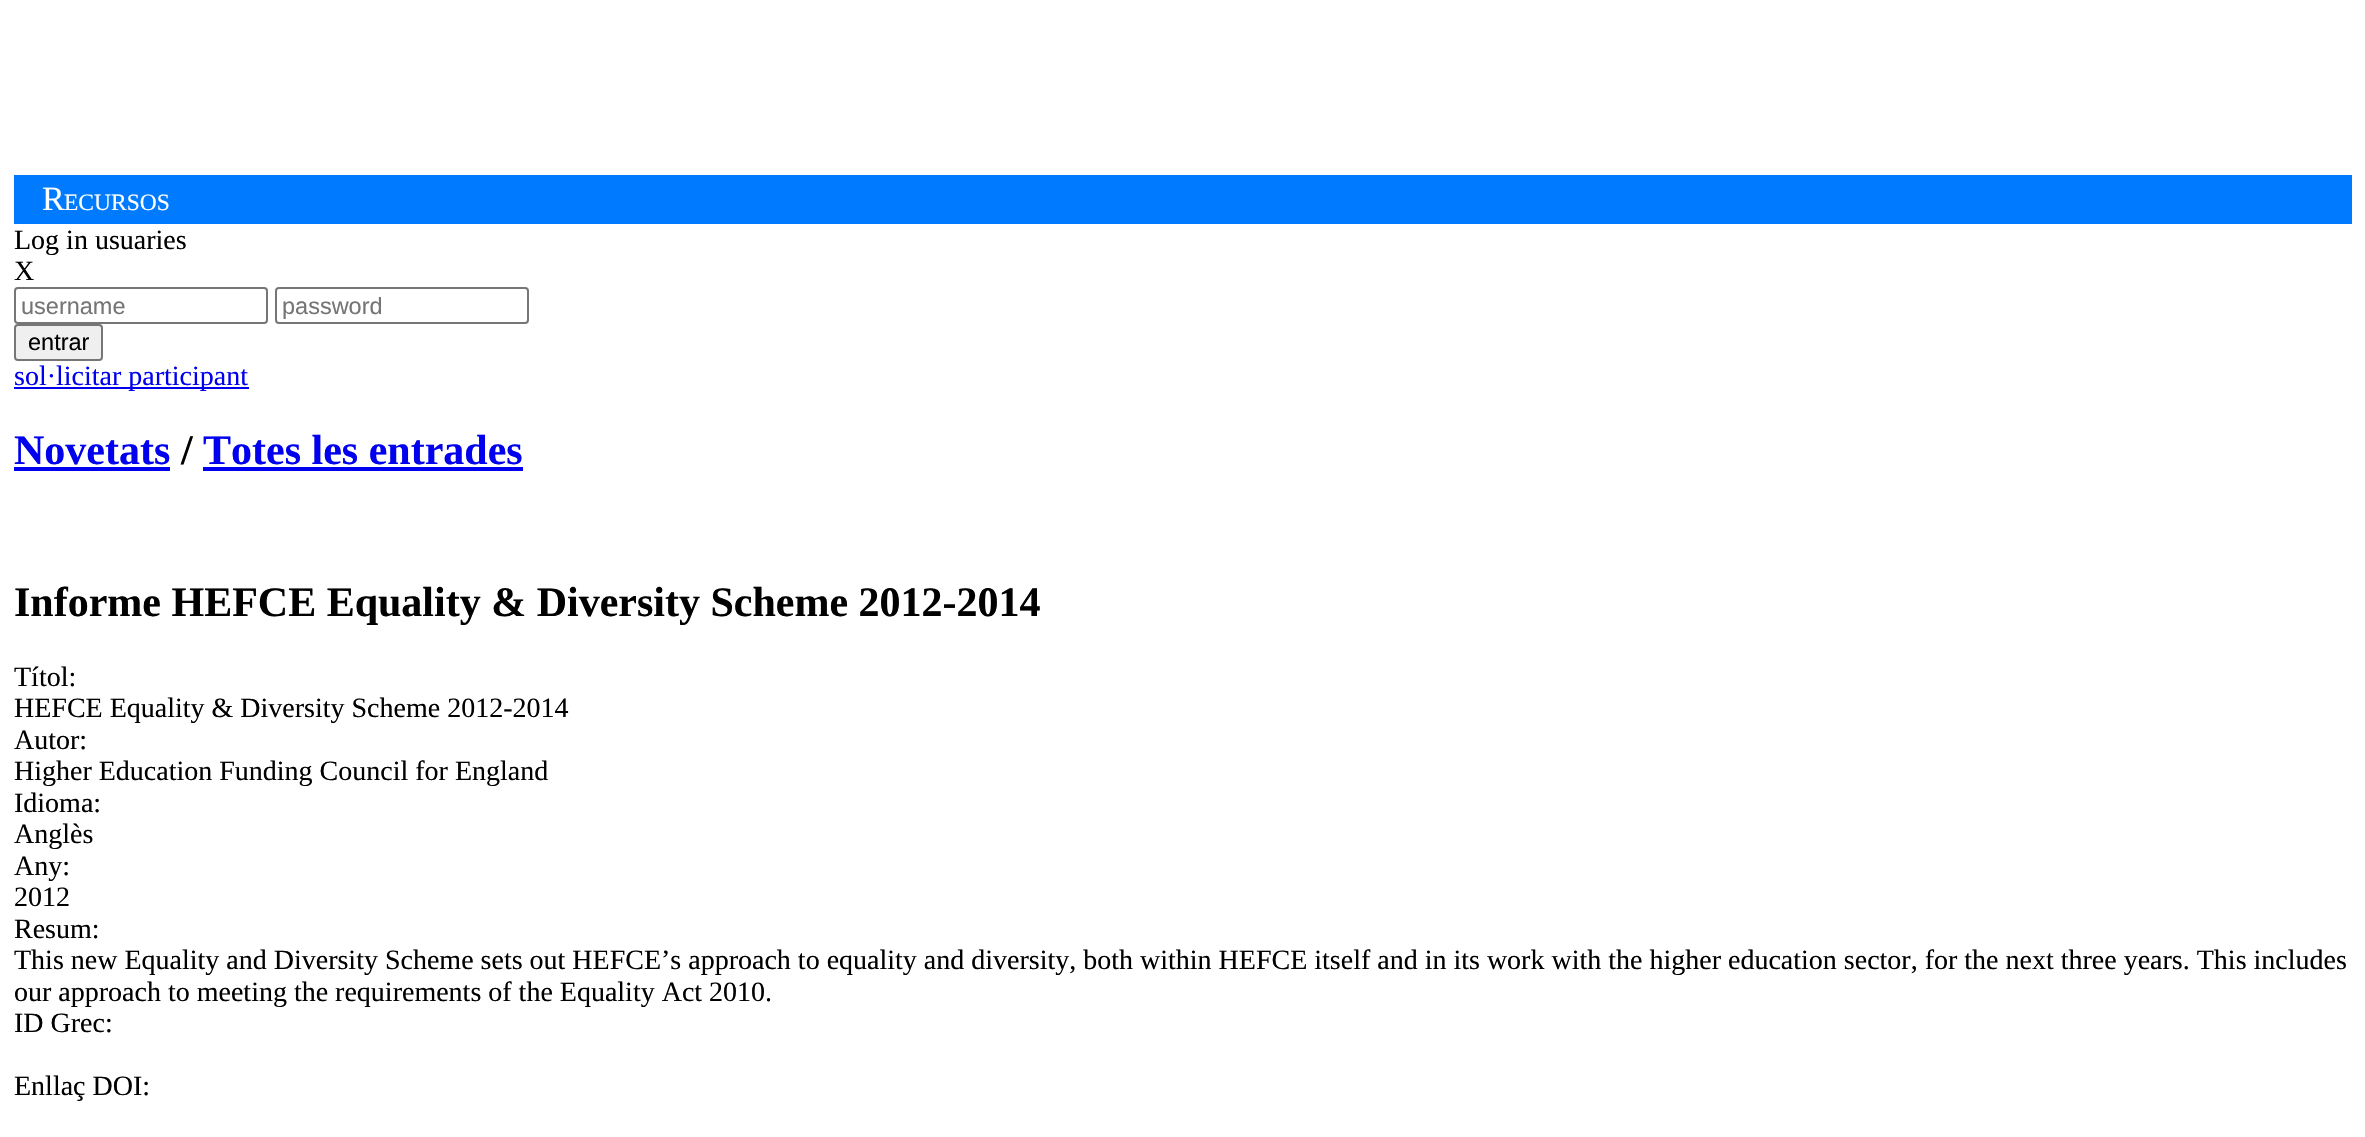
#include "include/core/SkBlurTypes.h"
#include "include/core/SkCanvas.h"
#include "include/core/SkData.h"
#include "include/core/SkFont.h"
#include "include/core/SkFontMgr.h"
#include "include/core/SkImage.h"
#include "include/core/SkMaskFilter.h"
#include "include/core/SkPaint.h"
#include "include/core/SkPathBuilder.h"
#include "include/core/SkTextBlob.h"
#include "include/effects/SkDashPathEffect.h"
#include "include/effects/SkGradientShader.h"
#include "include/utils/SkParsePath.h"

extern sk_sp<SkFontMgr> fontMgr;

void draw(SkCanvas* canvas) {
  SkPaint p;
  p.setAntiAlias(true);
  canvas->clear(SK_ColorWHITE);
  p.setColor(SkColorSetRGB(0, 123, 255));
  canvas->drawRect(SkRect::MakeLTRB(14, 175, 2352, 224), p);
  p.setStyle(SkPaint::kStroke_Style);
  p.setStrokeWidth(2);
  p.setColor(SkColorSetRGB(118, 118, 118));
  canvas->drawRoundRect(SkRect::MakeLTRB(15, 288, 267, 323), 3, 3, p);
  canvas->drawRoundRect(SkRect::MakeLTRB(276, 288, 528, 323), 3, 3, p);
  p.setStyle(SkPaint::kFill_Style);
  p.setColor(SkColorSetRGB(239, 239, 239));
  canvas->drawRoundRect(SkRect::MakeLTRB(15, 325, 102, 360), 3, 3, p);
  p.setStyle(SkPaint::kStroke_Style);
  p.setColor(SkColorSetRGB(118, 118, 118));
  canvas->drawRoundRect(SkRect::MakeLTRB(15, 325, 102, 360), 3, 3, p);
  p.setStyle(SkPaint::kFill_Style);
  p.setColor(SkColorSetRGB(0, 0, 238));
  canvas->drawRect(SkRect::MakeLTRB(14, 387, 249, 389), p);
  canvas->drawRect(SkRect::MakeLTRB(14, 467, 170, 471), p);
  canvas->drawRect(SkRect::MakeLTRB(203, 467, 523, 471), p);
  SkFont font1(fontMgr->matchFamilyStyle("Liberation Serif", SkFontStyle::Normal()), 34);
  font1.setSubpixel(true);
  p.setColor(SK_ColorWHITE);
  canvas->drawString("R", 42, 210, font1, p);
  SkFont font2(fontMgr->matchFamilyStyle("Liberation Serif", SkFontStyle::Normal()), 23.5f);
  font2.setSubpixel(true);
  canvas->drawString("ECURSOS", 64, 210, font2, p);
  SkFont font3(fontMgr->matchFamilyStyle("Liberation Serif", SkFontStyle::Normal()), 28);
  font3.setSubpixel(true);
  p.setColor(SK_ColorBLACK);
  canvas->drawString("Log in usuaries", 14, 249, font3, p);
  canvas->drawString("X", 14, 280, font3, p);
  SkFont font4(fontMgr->matchFamilyStyle("Liberation Sans", SkFontStyle::Normal()), 23.5f);
  font4.setSubpixel(true);
  p.setColor(SkColorSetRGB(117, 117, 117));
  canvas->drawString("username", 21, 314, font4, p);
  canvas->drawString("password", 282, 314, font4, p);
  p.setColor(SK_ColorBLACK);
  canvas->drawString("entrar", 28, 350, font4, p);
  p.setColor(SkColorSetRGB(0, 0, 238));
  canvas->drawString("sol·licitar participant", 14, 385, font3, p);
  SkFont font5(fontMgr->matchFamilyStyle("Liberation Serif", SkFontStyle::Bold()), 42);
  font5.setSubpixel(true);
  canvas->drawString("Novetats", 14, 464, font5, p);
  p.setColor(SK_ColorBLACK);
  canvas->drawString("/", 181, 464, font5, p);
  p.setColor(SkColorSetRGB(0, 0, 238));
  canvas->drawString("Totes les entrades", 203, 464, font5, p);
  p.setColor(SK_ColorBLACK);
  canvas->drawString("Informe HEFCE Equality & Diversity Scheme 2012-2014", 14, 616, font5, p);
  canvas->drawString("Títol:", 14, 686, font3, p);
  canvas->drawString("HEFCE Equality & Diversity Scheme 2012-2014", 14, 717, font3, p);
  canvas->drawString("Autor:", 14, 749, font3, p);
  canvas->drawString("Higher Education Funding Council for England", 14, 780, font3, p);
  canvas->drawString("Idioma:", 14, 812, font3, p);
  canvas->drawString("Anglès", 14, 843, font3, p);
  canvas->drawString("Any:", 14, 875, font3, p);
  canvas->drawString("2012", 14, 906, font3, p);
  canvas->drawString("Resum:", 14, 938, font3, p);
  canvas->drawString("This new Equality and Diversity Scheme sets out HEFCE’s approach to equality and diversity, both within HEFCE itself and in its work with the higher education sector, for the next three years. This includes", 14, 969, font3, p);
  canvas->drawString("our approach to meeting the requirements of the Equality Act 2010.", 14, 1001, font3, p);
  canvas->drawString("ID Grec:", 14, 1032, font3, p);
  canvas->drawString("Enllaç DOI:", 14, 1095, font3, p);
}
